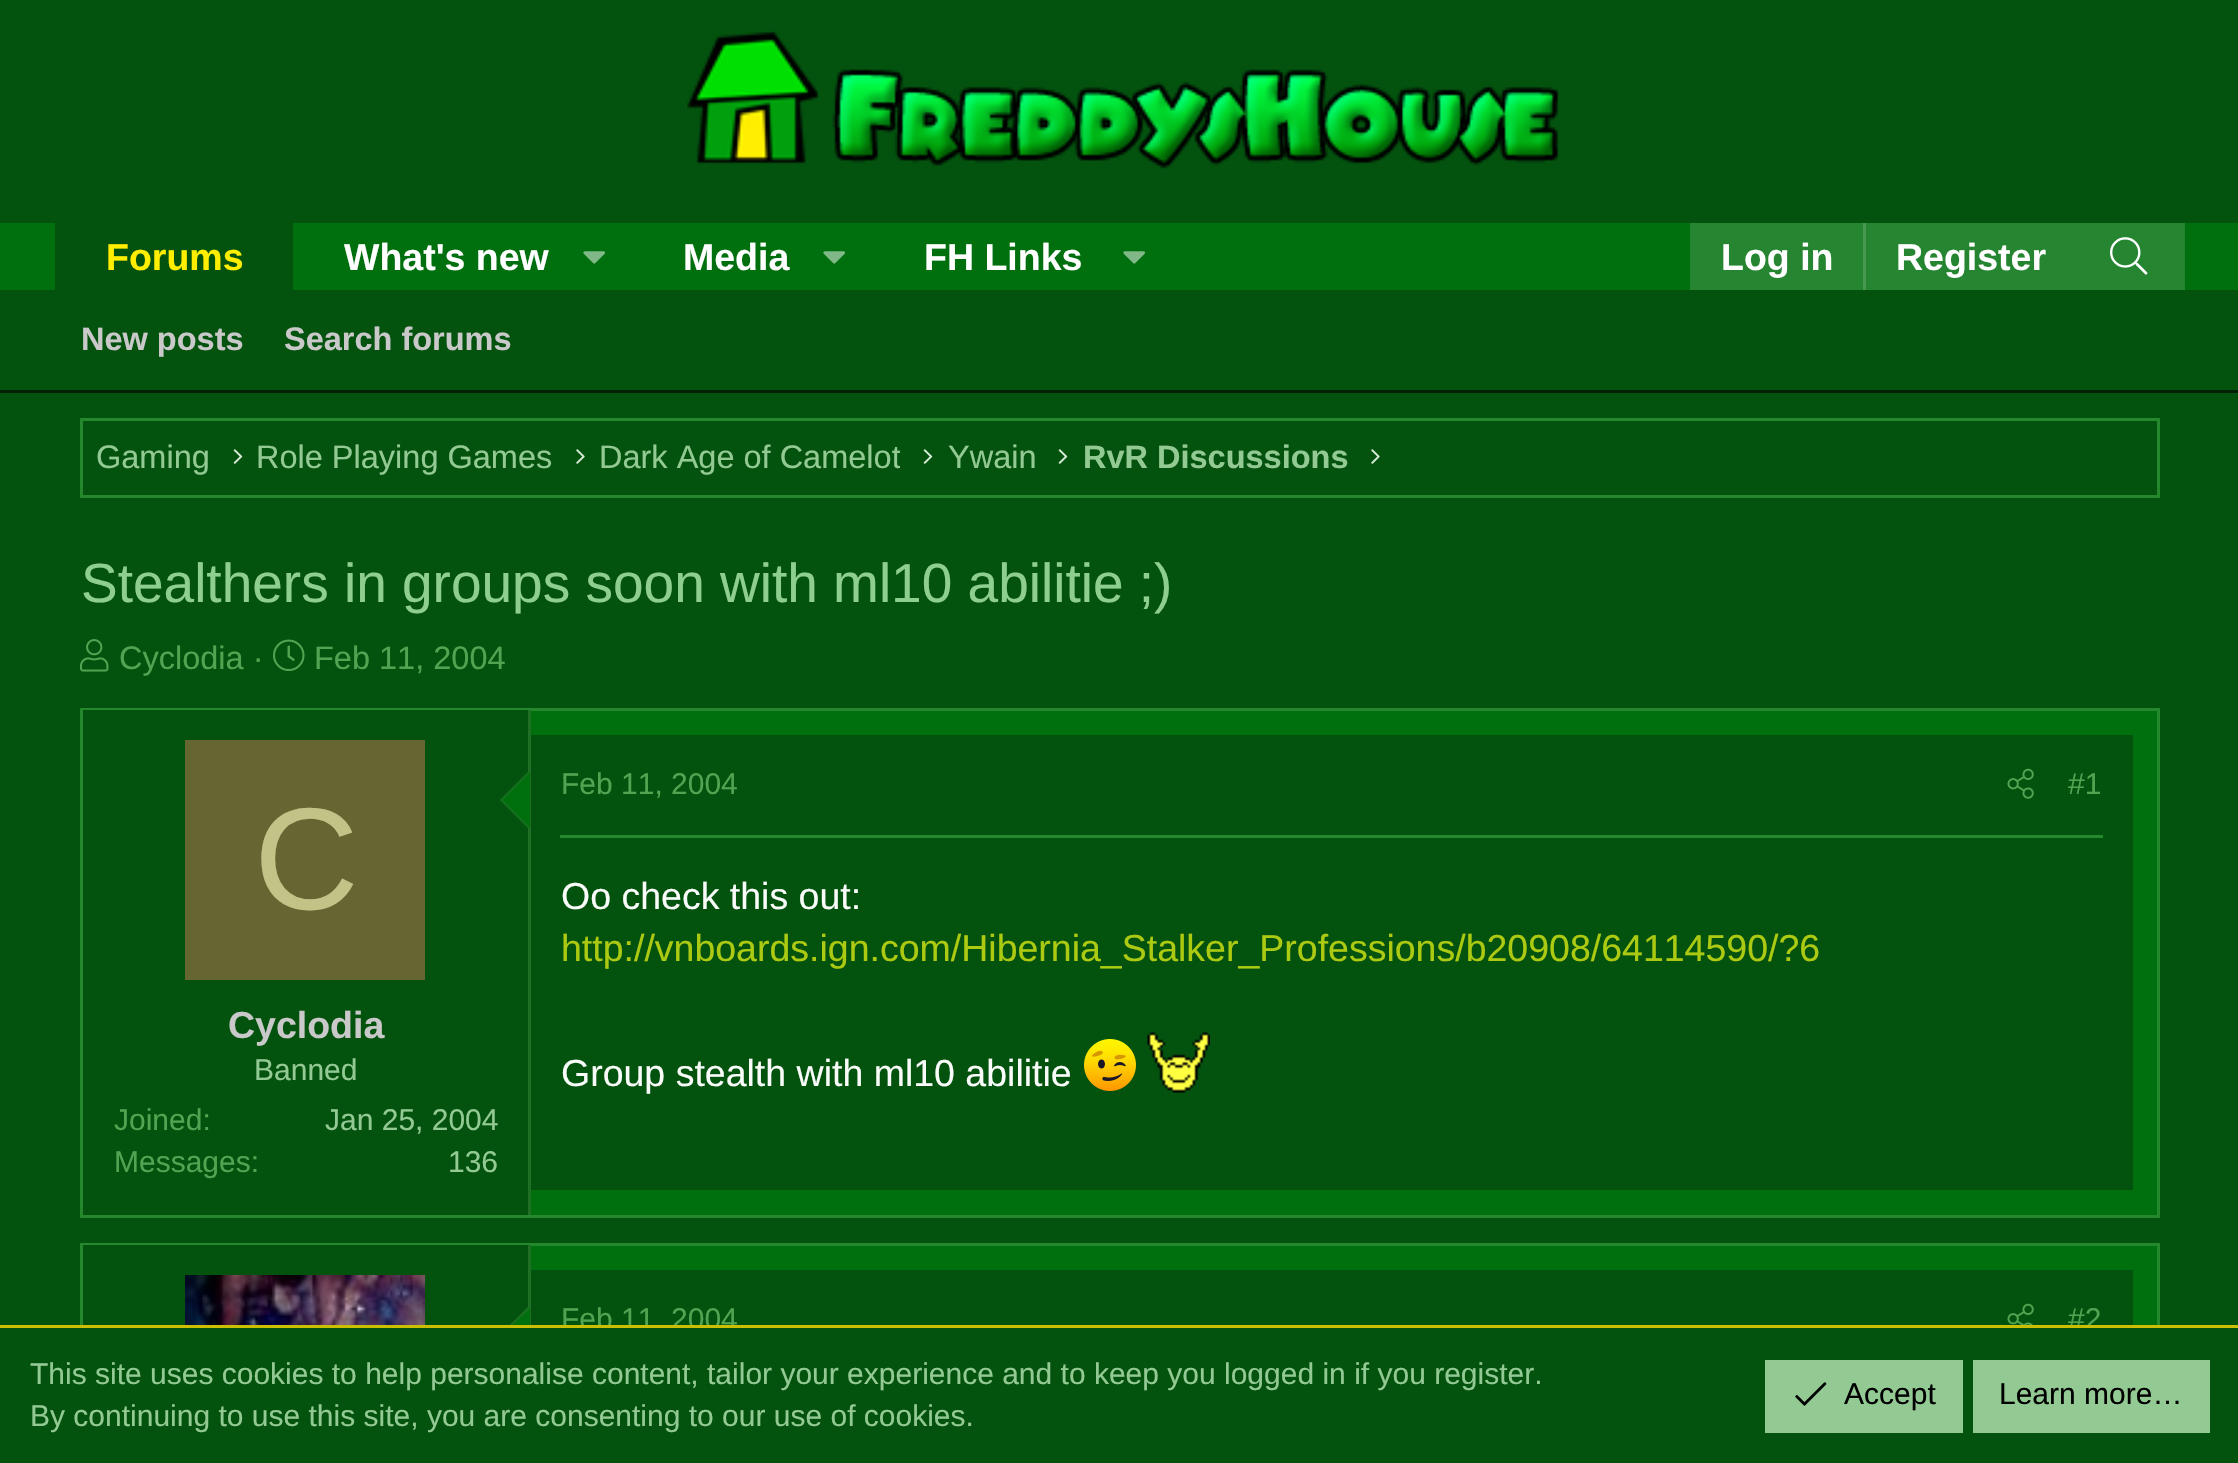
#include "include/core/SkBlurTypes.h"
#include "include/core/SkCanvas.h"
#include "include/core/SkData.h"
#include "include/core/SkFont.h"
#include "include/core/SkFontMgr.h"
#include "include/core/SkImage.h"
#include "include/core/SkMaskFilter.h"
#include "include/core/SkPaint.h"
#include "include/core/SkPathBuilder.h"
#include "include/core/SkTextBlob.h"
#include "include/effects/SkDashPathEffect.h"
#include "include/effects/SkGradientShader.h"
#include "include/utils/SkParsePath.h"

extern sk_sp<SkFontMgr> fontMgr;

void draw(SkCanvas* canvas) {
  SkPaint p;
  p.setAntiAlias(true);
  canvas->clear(SkColorSetRGB(3, 82, 14));
  canvas->drawImageRect(SkImages::DeferredFromEncodedData(SkData::MakeFromFileName("images/1.png")), SkRect::MakeLTRB(687, 31, 1559, 169), SkSamplingOptions());
  p.setColor(SkColorSetRGB(0, 111, 13));
  canvas->drawRect(SkRect::MakeLTRB(0, 223, 2238, 290), p);
  p.setColor(SkColorSetRGB(3, 82, 14));
  canvas->drawRect(SkRect::MakeLTRB(55, 223, 293, 290), p);
  canvas->drawImageRect(SkImages::DeferredFromEncodedData(SkData::MakeFromFileName("images/2.png")), SkRect::MakeLTRB(583, 251, 605, 264), SkSamplingOptions());
  canvas->drawImageRect(SkImages::DeferredFromEncodedData(SkData::MakeFromFileName("images/2.png")), SkRect::MakeLTRB(823, 251, 845, 264), SkSamplingOptions());
  canvas->drawImageRect(SkImages::DeferredFromEncodedData(SkData::MakeFromFileName("images/2.png")), SkRect::MakeLTRB(1123, 251, 1145, 264), SkSamplingOptions());
  p.setColor(SkColorSetRGB(38, 133, 49));
  canvas->drawRect(SkRect::MakeLTRB(1690, 223, 2185, 290), p);
  p.setColor(SkColorSetRGB(71, 151, 80));
  canvas->drawRect(SkRect::MakeLTRB(1863, 223, 1866, 290), p);
  canvas->drawImageRect(SkImages::DeferredFromEncodedData(SkData::MakeFromFileName("images/3.png")), SkRect::MakeLTRB(2110, 237, 2148, 275), SkSamplingOptions());
  p.setColor(SkColorSetRGB(1, 33, 6));
  canvas->drawRect(SkRect::MakeLTRB(0, 390, 2238, 393), p);
  p.setStyle(SkPaint::kStroke_Style);
  p.setStrokeWidth(3);
  p.setColor(SkColorSetRGB(38, 136, 44));
  canvas->drawRect(SkRect::MakeLTRB(81.5f, 419.5f, 2158.5f, 496.5f), p);
  canvas->drawImageRect(SkImages::DeferredFromEncodedData(SkData::MakeFromFileName("images/4.png")), SkRect::MakeLTRB(233, 449, 243, 464), SkSamplingOptions());
  canvas->drawImageRect(SkImages::DeferredFromEncodedData(SkData::MakeFromFileName("images/5.png")), SkRect::MakeLTRB(576, 449, 585, 464), SkSamplingOptions());
  canvas->drawImageRect(SkImages::DeferredFromEncodedData(SkData::MakeFromFileName("images/4.png")), SkRect::MakeLTRB(923, 449, 933, 464), SkSamplingOptions());
  canvas->drawImageRect(SkImages::DeferredFromEncodedData(SkData::MakeFromFileName("images/4.png")), SkRect::MakeLTRB(1058, 449, 1068, 464), SkSamplingOptions());
  canvas->drawImageRect(SkImages::DeferredFromEncodedData(SkData::MakeFromFileName("images/5.png")), SkRect::MakeLTRB(1371, 449, 1380, 464), SkSamplingOptions());
  canvas->drawImageRect(SkImages::DeferredFromEncodedData(SkData::MakeFromFileName("images/6.png")), SkRect::MakeLTRB(80, 639, 109, 672), SkSamplingOptions());
  canvas->drawImageRect(SkImages::DeferredFromEncodedData(SkData::MakeFromFileName("images/7.png")), SkRect::MakeLTRB(273, 639, 305, 671), SkSamplingOptions());
  p.setStyle(SkPaint::kFill_Style);
  p.setColor(SkColorSetRGB(0, 111, 13));
  canvas->drawRect(SkRect::MakeLTRB(531, 711, 2157, 1215), p);
  p.setStyle(SkPaint::kStroke_Style);
  p.setColor(SkColorSetRGB(38, 136, 44));
  canvas->drawRect(SkRect::MakeLTRB(81.5f, 709.5f, 2158.5f, 1216.5f), p);
  p.setStyle(SkPaint::kFill_Style);
  p.setColor(SkColorSetRGB(3, 82, 14));
  canvas->drawRect(SkRect::MakeLTRB(83, 710, 528, 711), p);
  p.setColor(SkColorSetRGB(31, 112, 36));
  canvas->drawRect(SkRect::MakeLTRB(528, 710, 531, 1215), p);
  canvas->drawPath(SkPathBuilder().moveTo(530, 770).lineTo(530, 830).lineTo(500, 800).close().detach(), p);
  p.setColor(SkColorSetRGB(0, 111, 13));
  canvas->drawPath(SkPathBuilder().moveTo(530, 772).lineTo(530, 828).lineTo(502, 800).close().detach(), p);
  p.setColor(SkColorSetRGB(102, 102, 51));
  canvas->drawRect(SkRect::MakeLTRB(185, 740, 425, 980), p);
  p.setColor(SkColorSetRGB(3, 82, 14));
  canvas->drawRect(SkRect::MakeLTRB(531, 735, 2133, 1190), p);
  p.setColor(SkColorSetRGB(38, 136, 44));
  canvas->drawRect(SkRect::MakeLTRB(560, 835, 2103, 838), p);
  canvas->drawImageRect(SkImages::DeferredFromEncodedData(SkData::MakeFromFileName("images/8.png")), SkRect::MakeLTRB(2007, 768, 2034, 799), SkSamplingOptions());
  canvas->drawImageRect(SkImages::DeferredFromEncodedData(SkData::MakeFromFileName("images/9.png")), SkRect::MakeLTRB(1084, 1039, 1136, 1091), SkSamplingOptions());
  canvas->drawImageRect(SkImages::DeferredFromEncodedData(SkData::MakeFromFileName("images/10.png")), SkRect::MakeLTRB(1147, 1031, 1210, 1093), SkSamplingOptions());
  p.setColor(SkColorSetRGB(0, 111, 13));
  canvas->drawRect(SkRect::MakeLTRB(531, 1246, 2157, 1325), p);
  p.setStyle(SkPaint::kStroke_Style);
  p.setColor(SkColorSetRGB(38, 136, 44));
  canvas->drawRect(SkRect::MakeLTRB(81.5f, 1244.5f, 2158.5f, 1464.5f), p);
  p.setStyle(SkPaint::kFill_Style);
  p.setColor(SkColorSetRGB(3, 82, 14));
  canvas->drawRect(SkRect::MakeLTRB(83, 1245, 528, 1246), p);
  p.setColor(SkColorSetRGB(31, 112, 36));
  canvas->drawRect(SkRect::MakeLTRB(528, 1245, 531, 1325), p);
  canvas->drawImageRect(SkImages::DeferredFromEncodedData(SkData::MakeFromFileName("images/11.png")), SkRect::MakeLTRB(185, 1275, 425, 1325), SkSamplingOptions());
  canvas->drawPath(SkPathBuilder().moveTo(530, 1305).lineTo(530, 1365).lineTo(500, 1335).close().detach(), p);
  p.setColor(SkColorSetRGB(0, 111, 13));
  canvas->drawPath(SkPathBuilder().moveTo(530, 1308).lineTo(530, 1362).lineTo(502, 1335).close().detach(), p);
  p.setColor(SkColorSetRGB(3, 82, 14));
  canvas->drawRect(SkRect::MakeLTRB(531, 1270, 2133, 1325), p);
  canvas->drawImageRect(SkImages::DeferredFromEncodedData(SkData::MakeFromFileName("images/12.png")), SkRect::MakeLTRB(2007, 1303, 2034, 1325), SkSamplingOptions());
  SkFont font1(fontMgr->matchFamilyStyle("Liberation Sans", SkFontStyle::Bold()), 37.5f);
  font1.setSubpixel(true);
  p.setColor(SkColorSetRGB(255, 238, 0));
  canvas->drawString("Forums", 106, 270, font1, p);
  p.setColor(SK_ColorWHITE);
  canvas->drawString("What's new", 344, 270, font1, p);
  canvas->drawString("Media", 683, 270, font1, p);
  canvas->drawString("FH Links", 924, 270, font1, p);
  canvas->drawString("Log in", 1721, 270, font1, p);
  canvas->drawString("Register", 1896, 270, font1, p);
  SkFont font2(fontMgr->matchFamilyStyle("Liberation Sans", SkFontStyle::Bold()), 32.5f);
  font2.setSubpixel(true);
  p.setColor(SkColorSetRGB(201, 201, 201));
  canvas->drawString("New posts", 81, 350, font2, p);
  canvas->drawString("Search forums", 284, 350, font2, p);
  SkFont font3(fontMgr->matchFamilyStyle("Liberation Sans", SkFontStyle::Normal()), 32.5f);
  font3.setSubpixel(true);
  p.setColor(SkColorSetRGB(147, 201, 147));
  canvas->drawString("Gaming", 96, 468, font3, p);
  canvas->drawString("Role Playing Games", 256, 468, font3, p);
  canvas->save();
  canvas->clipRect(SkRect::MakeLTRB(600, 433, 900, 483));
  canvas->drawString("Dark Age of Camelot", 599, 468, font3, p);
  canvas->restore();
  canvas->drawString("Ywain", 948, 468, font3, p);
  canvas->drawString("RvR Discussions", 1083, 468, font2, p);
  SkFont font4(fontMgr->matchFamilyStyle("Liberation Sans", SkFontStyle::Normal()), 55);
  font4.setSubpixel(true);
  p.setColor(SkColorSetRGB(142, 207, 142));
  canvas->drawString("Stealthers in groups soon with ml10 abilitie ;)", 81, 602, font4, p);
  p.setColor(SkColorSetRGB(82, 164, 82));
  canvas->drawString("Cyclodia ·", 119, 669, font3, p);
  canvas->drawString("Feb 11, 2004", 314, 669, font3, p);
  SkFont font5(fontMgr->matchFamilyStyle("Liberation Sans", SkFontStyle::Normal()), 145);
  font5.setSubpixel(true);
  p.setColor(SkColorSetRGB(195, 195, 136));
  canvas->drawString("C", 254, 909, font5, p);
  p.setColor(SkColorSetRGB(201, 201, 201));
  canvas->drawString("Cyclodia", 228, 1038, font1, p);
  SkFont font6(fontMgr->matchFamilyStyle("Liberation Sans", SkFontStyle::Normal()), 30);
  font6.setSubpixel(true);
  p.setColor(SkColorSetRGB(147, 201, 147));
  canvas->drawString("Banned", 254, 1080, font6, p);
  p.setColor(SkColorSetRGB(82, 164, 82));
  canvas->drawString("Joined:", 114, 1130, font6, p);
  p.setColor(SkColorSetRGB(147, 201, 147));
  canvas->drawString("Jan 25, 2004", 325, 1130, font6, p);
  p.setColor(SkColorSetRGB(82, 164, 82));
  canvas->drawString("Messages:", 114, 1172, font6, p);
  p.setColor(SkColorSetRGB(147, 201, 147));
  canvas->drawString("136", 448, 1172, font6, p);
  p.setColor(SkColorSetRGB(82, 164, 82));
  canvas->drawString("Feb 11, 2004", 561, 794, font6, p);
  canvas->drawString("#1", 2068, 794, font6, p);
  SkFont font7(fontMgr->matchFamilyStyle("Liberation Sans", SkFontStyle::Normal()), 37.5f);
  font7.setSubpixel(true);
  p.setColor(SkColorSetRGB(249, 252, 249));
  canvas->drawString("Oo check this out:", 561, 909, font7, p);
  p.setColor(SkColorSetRGB(173, 202, 18));
  canvas->drawString("http://vnboards.ign.com/Hibernia_Stalker_Professions/b20908/64114590/?6", 561, 961, font7, p);
  p.setColor(SkColorSetRGB(249, 252, 249));
  canvas->drawString("Group stealth with ml10 abilitie", 561, 1086, font7, p);
  p.setColor(SkColorSetRGB(82, 164, 82));
  canvas->drawString("Feb 11, 2004", 561, 1329, font6, p);
  canvas->drawString("#2", 2068, 1329, font6, p);
  p.setColor(SkColorSetRGB(3, 82, 14));
  canvas->drawRect(SkRect::MakeLTRB(80, 1328, 2160, 1463), p);
  p.setColor(SkColorSetRGB(204, 190, 0));
  canvas->drawRect(SkRect::MakeLTRB(0, 1325, 2238, 1328), p);
  p.setColor(SkColorSetRGB(147, 201, 147));
  canvas->drawString("This site uses cookies to help personalise content, tailor your experience and to keep you logged in if you register.", 30, 1384, font6, p);
  canvas->drawString("By continuing to use this site, you are consenting to our use of cookies.", 30, 1426, font6, p);
  canvas->drawRect(SkRect::MakeLTRB(1765, 1360, 1963, 1433), p);
  canvas->drawImageRect(SkImages::DeferredFromEncodedData(SkData::MakeFromFileName("images/13.png")), SkRect::MakeLTRB(1795, 1382, 1827, 1406), SkSamplingOptions());
  p.setColor(SK_ColorBLACK);
  canvas->drawString("Accept", 1844, 1404, font6, p);
  p.setColor(SkColorSetRGB(147, 201, 147));
  canvas->drawRect(SkRect::MakeLTRB(1973, 1360, 2210, 1433), p);
  p.setColor(SK_ColorBLACK);
  canvas->drawString("Learn more…", 1999, 1404, font6, p);
}
